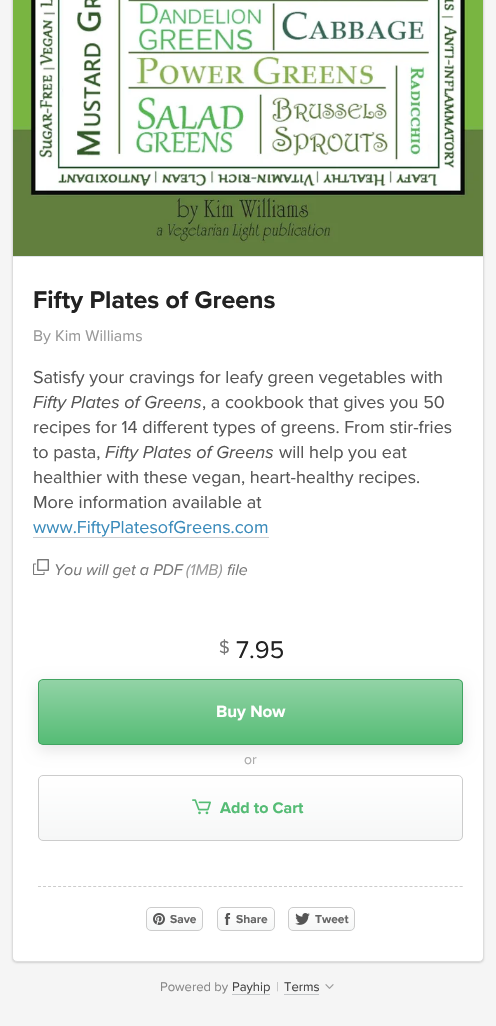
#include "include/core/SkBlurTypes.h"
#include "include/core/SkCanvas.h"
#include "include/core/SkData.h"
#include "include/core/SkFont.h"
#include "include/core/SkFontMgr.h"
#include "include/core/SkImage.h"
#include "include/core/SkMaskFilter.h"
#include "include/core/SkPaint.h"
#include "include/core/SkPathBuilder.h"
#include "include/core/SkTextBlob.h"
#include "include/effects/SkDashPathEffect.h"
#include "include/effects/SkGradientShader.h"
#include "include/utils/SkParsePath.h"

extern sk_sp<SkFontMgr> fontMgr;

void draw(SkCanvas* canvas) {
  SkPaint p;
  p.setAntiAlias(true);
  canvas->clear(SkColorSetRGB(245, 245, 245));
  p.setColor(SkColorSetARGB(38, 0, 0, 0));
  p.setMaskFilter(SkMaskFilter::MakeBlur(kNormal_SkBlurStyle, 1));
  canvas->drawRoundRect(SkRect::MakeLTRB(12, -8, 484, 963), 5, 5, p);
  p.setMaskFilter(nullptr);
  p.setColor(SK_ColorWHITE);
  canvas->drawRoundRect(SkRect::MakeLTRB(12.5f, -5.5f, 483.5f, 961.5f), 4.5f, 4.5f, p);
  p.setStyle(SkPaint::kStroke_Style);
  p.setStrokeWidth(1);
  p.setColor(SkColorSetRGB(221, 221, 221));
  canvas->drawRoundRect(SkRect::MakeLTRB(12.5f, -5.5f, 483.5f, 961.5f), 4.5f, 4.5f, p);
  p.setStyle(SkPaint::kFill_Style);
  p.setColor(SkColorSetRGB(224, 229, 233));
  canvas->drawRect(SkRect::MakeLTRB(13, 256, 483, 257), p);
  canvas->drawImageRect(SkImages::DeferredFromEncodedData(SkData::MakeFromFileName("images/1.png")), SkRect::MakeLTRB(13, 0, 483, 256), SkSamplingOptions());
  p.setColor(SkColorSetRGB(203, 205, 208));
  canvas->drawRect(SkRect::MakeLTRB(33, 537, 269, 538), p);
  canvas->drawImageRect(SkImages::DeferredFromEncodedData(SkData::MakeFromFileName("images/2.png")), SkRect::MakeLTRB(33, 559, 49, 575), SkSamplingOptions());
  p.setColor(SkColorSetARGB(26, 0, 0, 0));
  p.setMaskFilter(SkMaskFilter::MakeBlur(kNormal_SkBlurStyle, 7.5f));
  canvas->drawRoundRect(SkRect::MakeLTRB(38, 684, 463, 750), 5, 5, p);
  p.setMaskFilter(nullptr);
  canvas->save();
  canvas->clipPath(SkPathBuilder().moveTo(43, 679).lineTo(458, 679).cubicTo(461, 679, 463, 681, 463, 684).lineTo(463, 740).cubicTo(463, 743, 461, 745, 458, 745).lineTo(43, 745).cubicTo(40, 745, 38, 743, 38, 740).lineTo(38, 684).cubicTo(38, 681, 40, 679, 43, 679).close().detach(), true);
  {
    const SkColor colors[] = {SkColorSetRGB(146, 211, 166), SkColorSetRGB(85, 188, 117)};
    const float stops[] = {0, 1};
    const SkPoint ends[] = {{39, 680}, {39, 744}};
    p.setShader(SkGradientShader::MakeLinear(ends, colors, stops, 2, SkTileMode::kClamp));
    p.setAlpha(255);
  }
  canvas->drawRect(SkRect::MakeLTRB(38, 680, 463, 744), p);
  canvas->restore();
  p.setStyle(SkPaint::kStroke_Style);
  p.setShader(nullptr);
  p.setColor(SkColorSetRGB(65, 164, 97));
  canvas->drawRoundRect(SkRect::MakeLTRB(38.5f, 679.5f, 462.5f, 744.5f), 4.5f, 4.5f, p);
  canvas->save();
  canvas->clipPath(SkPathBuilder().moveTo(43, 775).lineTo(458, 775).cubicTo(461, 775, 463, 777, 463, 780).lineTo(463, 836).cubicTo(463, 839, 461, 841, 458, 841).lineTo(43, 841).cubicTo(40, 841, 38, 839, 38, 836).lineTo(38, 780).cubicTo(38, 777, 40, 775, 43, 775).close().detach(), true);
  p.setStyle(SkPaint::kFill_Style);
  {
    const SkColor colors[] = {SK_ColorWHITE, SkColorSetRGB(246, 247, 247)};
    const float stops[] = {0, 1};
    const SkPoint ends[] = {{39, 776}, {39, 840}};
    p.setShader(SkGradientShader::MakeLinear(ends, colors, stops, 2, SkTileMode::kClamp));
    p.setAlpha(255);
  }
  canvas->drawRect(SkRect::MakeLTRB(38, 776, 463, 840), p);
  canvas->restore();
  p.setStyle(SkPaint::kStroke_Style);
  p.setShader(nullptr);
  p.setColor(SkColorSetRGB(204, 204, 204));
  canvas->drawRoundRect(SkRect::MakeLTRB(38.5f, 775.5f, 462.5f, 840.5f), 4.5f, 4.5f, p);
  canvas->drawImageRect(SkImages::DeferredFromEncodedData(SkData::MakeFromFileName("images/3.png")), SkRect::MakeLTRB(192, 799, 211, 815), SkSamplingOptions());
  p.setPathEffect(SkDashPathEffect::Make({{3, 2.02f}}, 0));
  canvas->drawPath(SkPathBuilder().moveTo(38, 886.5f).lineTo(463, 886.5f).detach(), p);
  p.setPathEffect(nullptr);
  canvas->save();
  canvas->clipPath(SkPathBuilder().moveTo(151, 907).lineTo(198, 907).cubicTo(201, 907, 203, 909, 203, 912).lineTo(203, 926).cubicTo(203, 929, 201, 931, 198, 931).lineTo(151, 931).cubicTo(148, 931, 146, 929, 146, 926).lineTo(146, 912).cubicTo(146, 909, 148, 907, 151, 907).close().detach(), true);
  p.setStyle(SkPaint::kFill_Style);
  {
    const SkColor colors[] = {SK_ColorWHITE, SkColorSetRGB(246, 247, 247)};
    const float stops[] = {0, 1};
    const SkPoint ends[] = {{175, 908}, {175, 930}};
    p.setShader(SkGradientShader::MakeLinear(ends, colors, stops, 2, SkTileMode::kClamp));
    p.setAlpha(255);
  }
  canvas->drawRect(SkRect::MakeLTRB(146, 908, 203, 930), p);
  canvas->restore();
  p.setStyle(SkPaint::kStroke_Style);
  p.setShader(nullptr);
  p.setColor(SkColorSetRGB(204, 204, 204));
  canvas->drawRoundRect(SkRect::MakeLTRB(146.5f, 907.5f, 202.5f, 930.5f), 4.5f, 4.5f, p);
  canvas->drawImageRect(SkImages::DeferredFromEncodedData(SkData::MakeFromFileName("images/4.png")), SkRect::MakeLTRB(153, 913, 165, 925), SkSamplingOptions());
  canvas->save();
  canvas->clipPath(SkPathBuilder().moveTo(222, 907).lineTo(270, 907).cubicTo(273, 907, 275, 909, 275, 912).lineTo(275, 926).cubicTo(275, 929, 273, 931, 270, 931).lineTo(222, 931).cubicTo(219, 931, 217, 929, 217, 926).lineTo(217, 912).cubicTo(217, 909, 219, 907, 222, 907).close().detach(), true);
  p.setStyle(SkPaint::kFill_Style);
  {
    const SkColor colors[] = {SK_ColorWHITE, SkColorSetRGB(246, 247, 247)};
    const float stops[] = {0, 1};
    const SkPoint ends[] = {{246, 908}, {246, 930}};
    p.setShader(SkGradientShader::MakeLinear(ends, colors, stops, 2, SkTileMode::kClamp));
    p.setAlpha(255);
  }
  canvas->drawRect(SkRect::MakeLTRB(217, 908, 275, 930), p);
  canvas->restore();
  p.setStyle(SkPaint::kStroke_Style);
  p.setShader(nullptr);
  p.setColor(SkColorSetRGB(204, 204, 204));
  canvas->drawRoundRect(SkRect::MakeLTRB(217.5f, 907.5f, 274.5f, 930.5f), 4.5f, 4.5f, p);
  canvas->drawImageRect(SkImages::DeferredFromEncodedData(SkData::MakeFromFileName("images/5.png")), SkRect::MakeLTRB(224, 913, 231, 925), SkSamplingOptions());
  canvas->save();
  canvas->clipPath(SkPathBuilder().moveTo(293, 907).lineTo(350, 907).cubicTo(353, 907, 355, 909, 355, 912).lineTo(355, 926).cubicTo(355, 929, 353, 931, 350, 931).lineTo(293, 931).cubicTo(290, 931, 288, 929, 288, 926).lineTo(288, 912).cubicTo(288, 909, 290, 907, 293, 907).close().detach(), true);
  p.setStyle(SkPaint::kFill_Style);
  {
    const SkColor colors[] = {SK_ColorWHITE, SkColorSetRGB(246, 247, 247)};
    const float stops[] = {0, 1};
    const SkPoint ends[] = {{322, 908}, {322, 930}};
    p.setShader(SkGradientShader::MakeLinear(ends, colors, stops, 2, SkTileMode::kClamp));
    p.setAlpha(255);
  }
  canvas->drawRect(SkRect::MakeLTRB(288, 908, 355, 930), p);
  canvas->restore();
  p.setStyle(SkPaint::kStroke_Style);
  p.setShader(nullptr);
  p.setColor(SkColorSetRGB(204, 204, 204));
  canvas->drawRoundRect(SkRect::MakeLTRB(288.5f, 907.5f, 354.5f, 930.5f), 4.5f, 4.5f, p);
  canvas->drawImageRect(SkImages::DeferredFromEncodedData(SkData::MakeFromFileName("images/6.png")), SkRect::MakeLTRB(295, 913, 310, 925), SkSamplingOptions());
  p.setStyle(SkPaint::kFill_Style);
  p.setColor(SkColorSetRGB(195, 198, 200));
  canvas->drawRect(SkRect::MakeLTRB(232, 994, 270, 995), p);
  canvas->drawRect(SkRect::MakeLTRB(284, 994, 319, 995), p);
  canvas->drawImageRect(SkImages::DeferredFromEncodedData(SkData::MakeFromFileName("images/7.png")), SkRect::MakeLTRB(325, 984, 334, 989), SkSamplingOptions());
  SkFont font1(fontMgr->matchFamilyStyle("Proxima Nova", SkFontStyle::Bold()), 25);
  font1.setSubpixel(true);
  p.setColor(SkColorSetRGB(34, 34, 34));
  canvas->drawString("Fifty Plates of Greens", 33, 308, font1, p);
  SkFont font2(fontMgr->matchFamilyStyle("Proxima Nova", SkFontStyle::Normal()), 16);
  font2.setSubpixel(true);
  p.setColor(SkColorSetRGB(153, 153, 153));
  canvas->drawString("By Kim Williams", 33, 341, font2, p);
  SkFont font3(fontMgr->matchFamilyStyle("Proxima Nova", SkFontStyle::Normal()), 18);
  font3.setSubpixel(true);
  p.setColor(SkColorSetRGB(85, 85, 85));
  canvas->drawString("Satisfy your cravings for leafy green vegetables with", 33, 383, font3, p);
  SkFont font4(fontMgr->matchFamilyStyle("Proxima Nova", SkFontStyle::Italic()), 18);
  font4.setSubpixel(true);
  canvas->drawString("Fifty Plates of Greens", 33, 408, font4, p);
  canvas->drawString(", a cookbook that gives you 50", 202, 408, font3, p);
  canvas->drawString("recipes for 14 different types of greens. From stir-fries", 33, 433, font3, p);
  canvas->drawString("to pasta,", 33, 458, font3, p);
  canvas->drawString("Fifty Plates of Greens", 105, 458, font4, p);
  canvas->drawString("will help you eat", 279, 458, font3, p);
  canvas->drawString("healthier with these vegan, heart-healthy recipes.", 33, 483, font3, p);
  canvas->drawString("More information available at", 33, 508, font3, p);
  p.setColor(SkColorSetRGB(58, 139, 187));
  canvas->drawString("www.FiftyPlatesofGreens.com", 33, 533, font3, p);
  SkFont font5(fontMgr->matchFamilyStyle("Proxima Nova", SkFontStyle::Italic()), 16);
  font5.setSubpixel(true);
  p.setColor(SkColorSetRGB(119, 119, 119));
  canvas->drawString("You will get a PDF", 54, 575, font5, p);
  p.setColor(SkColorSetRGB(153, 153, 153));
  canvas->drawString("(1MB)", 186, 575, font5, p);
  p.setColor(SkColorSetRGB(119, 119, 119));
  canvas->drawString("file", 227, 575, font5, p);
  canvas->drawString("$", 219, 653, font3, p);
  SkFont font6(fontMgr->matchFamilyStyle("Proxima Nova", SkFontStyle::Normal()), 25);
  font6.setSubpixel(true);
  p.setColor(SkColorSetRGB(34, 34, 34));
  canvas->drawString("7.95", 236, 658, font6, p);
  SkFont font7(fontMgr->matchFamilyStyle("Proxima Nova", SkFontStyle::Bold()), 17);
  font7.setSubpixel(true);
  p.setColor(SK_ColorWHITE);
  canvas->drawString("Buy Now", 216, 717, font7, p);
  SkFont font8(fontMgr->matchFamilyStyle("Proxima Nova", SkFontStyle::Normal()), 14);
  font8.setSubpixel(true);
  p.setColor(SkColorSetRGB(170, 170, 170));
  canvas->drawString("or", 244, 764, font8, p);
  SkFont font9(fontMgr->matchFamilyStyle("Proxima Nova", SkFontStyle::Bold()), 16);
  font9.setSubpixel(true);
  p.setColor(SkColorSetRGB(85, 188, 117));
  canvas->drawString("Add to Cart", 220, 813, font9, p);
  SkFont font10(fontMgr->matchFamilyStyle("Proxima Nova", SkFontStyle::Bold()), 12);
  font10.setSubpixel(true);
  p.setColor(SkColorSetRGB(102, 102, 102));
  canvas->drawString("Save", 170, 923, font10, p);
  canvas->drawString("Share", 236, 923, font10, p);
  canvas->drawString("Tweet", 315, 923, font10, p);
  SkFont font11(fontMgr->matchFamilyStyle("Proxima Nova", SkFontStyle::Normal()), 13);
  font11.setSubpixel(true);
  p.setColor(SkColorSetRGB(136, 136, 136));
  canvas->drawString("Powered by", 160, 991, font11, p);
  p.setColor(SkColorSetRGB(68, 68, 68));
  canvas->drawString("Payhip", 232, 991, font11, p);
  p.setColor(SkColorSetRGB(187, 187, 187));
  canvas->drawString("|", 276, 991, font11, p);
  p.setColor(SkColorSetRGB(68, 68, 68));
  canvas->drawString("Terms", 284, 991, font11, p);
}
